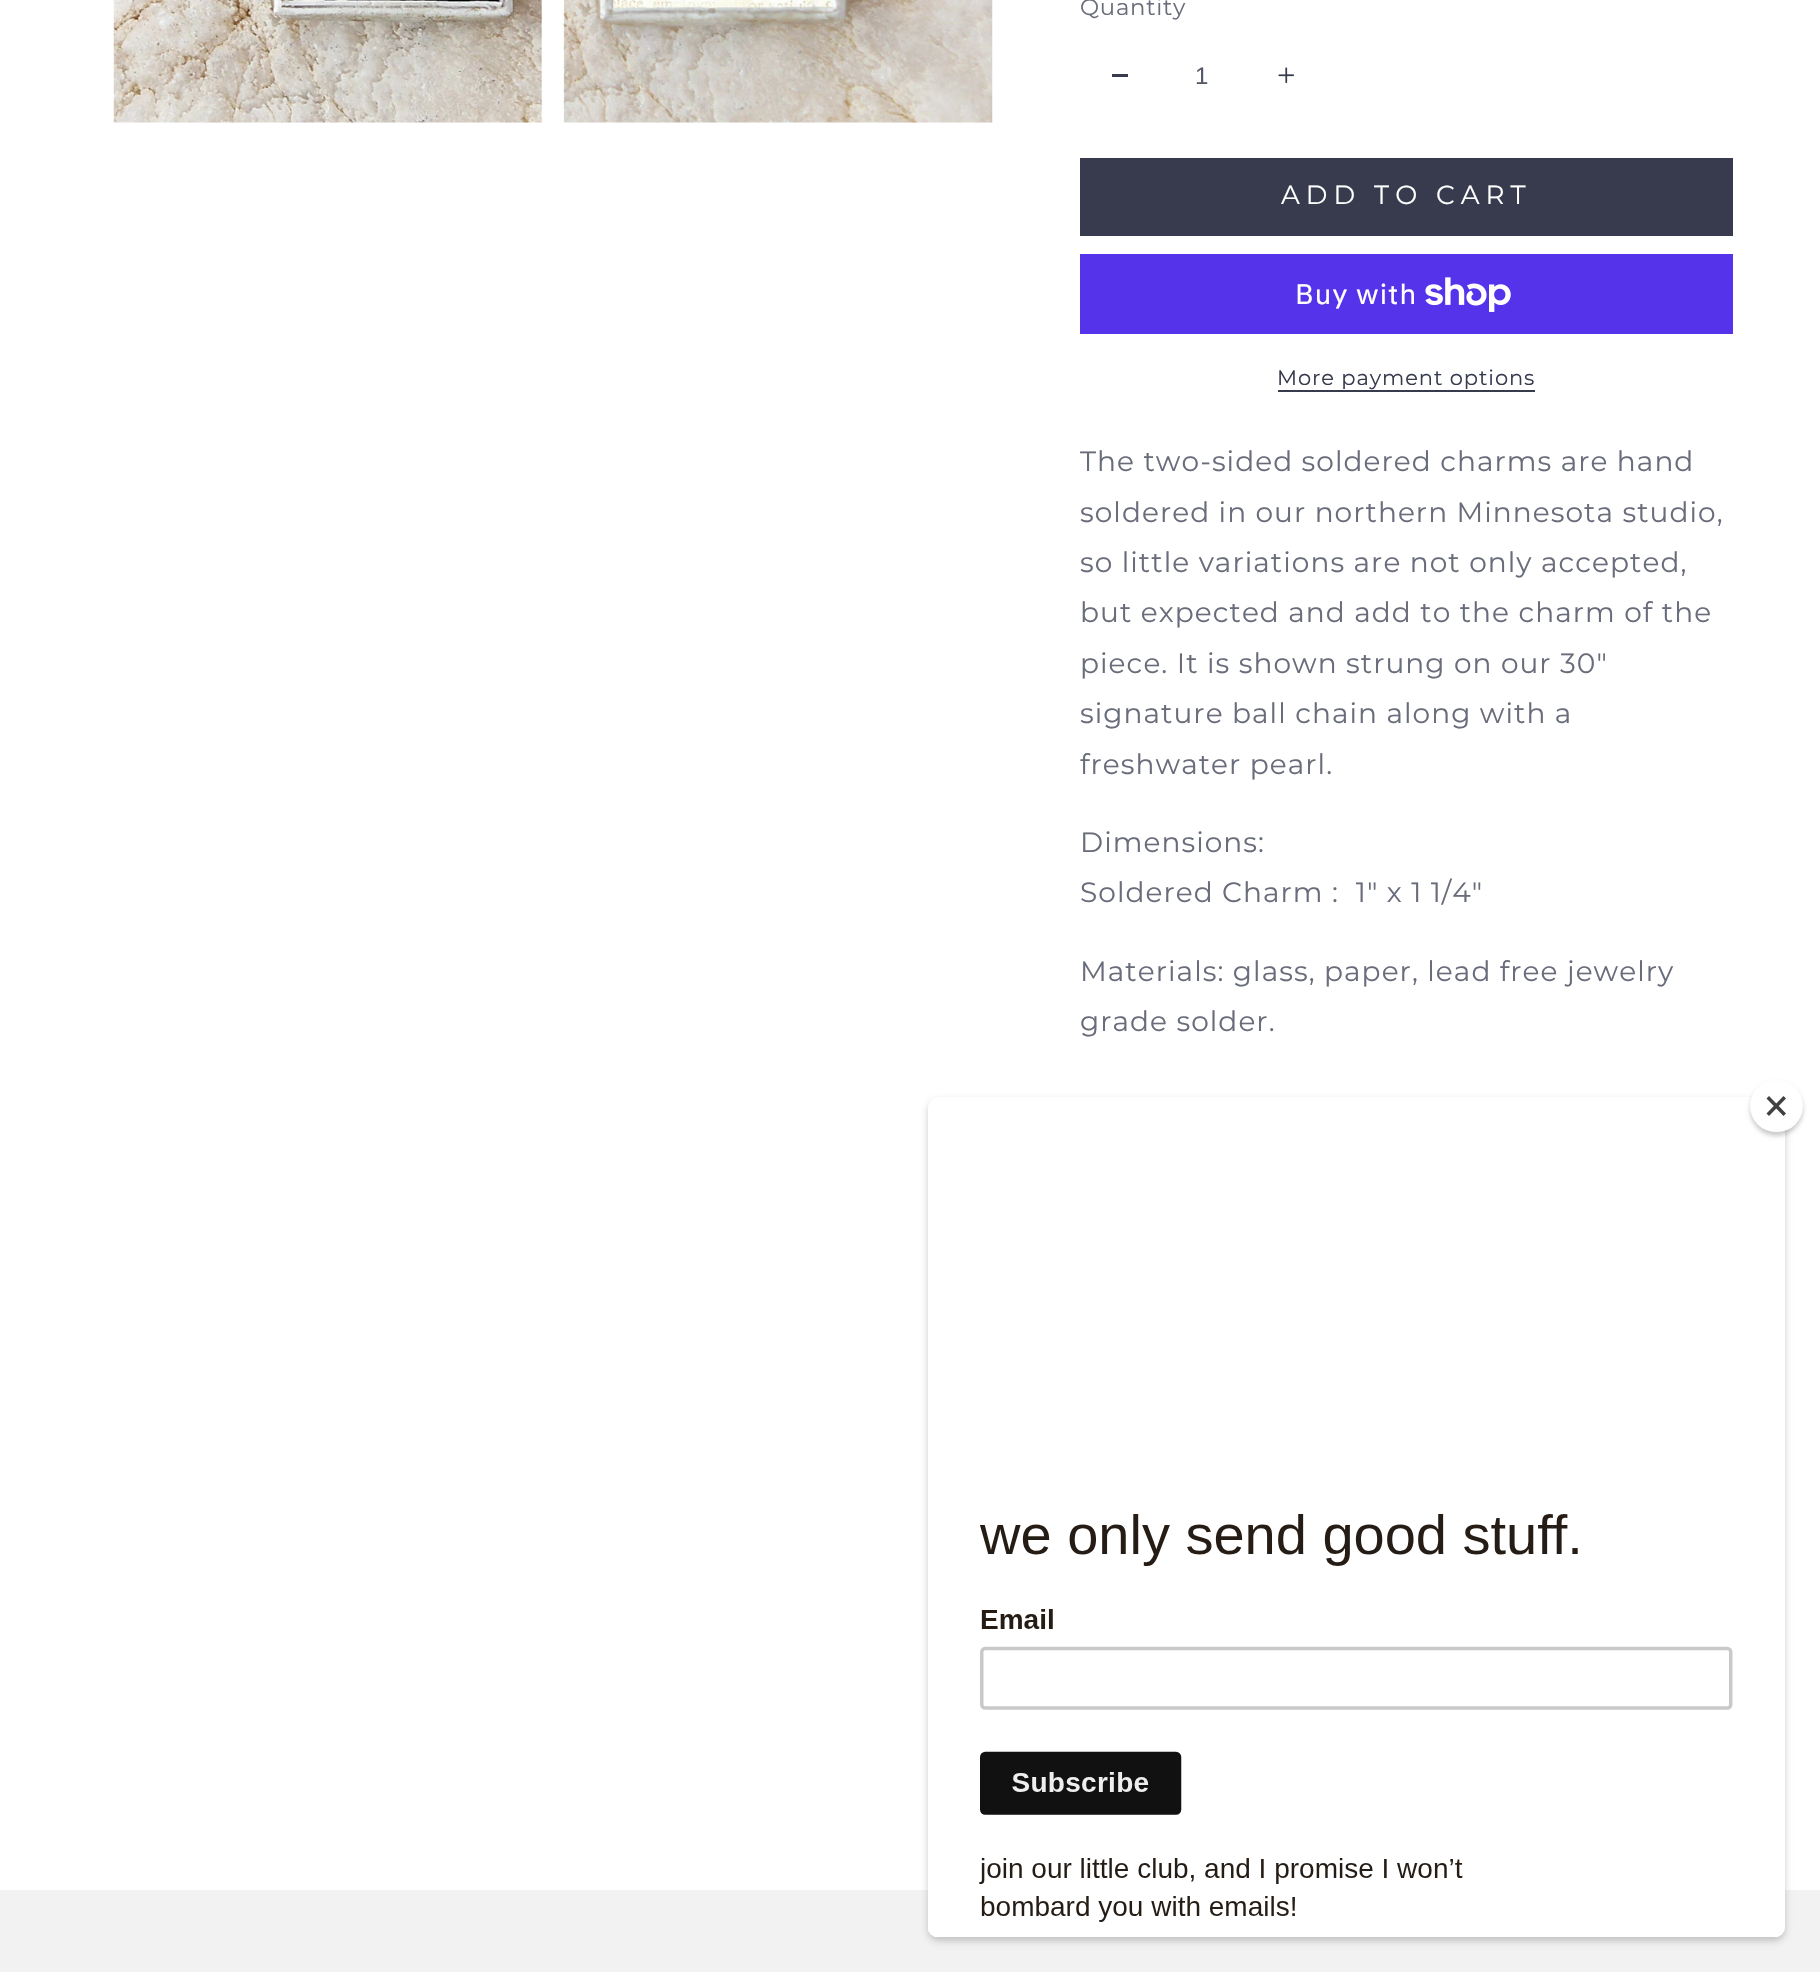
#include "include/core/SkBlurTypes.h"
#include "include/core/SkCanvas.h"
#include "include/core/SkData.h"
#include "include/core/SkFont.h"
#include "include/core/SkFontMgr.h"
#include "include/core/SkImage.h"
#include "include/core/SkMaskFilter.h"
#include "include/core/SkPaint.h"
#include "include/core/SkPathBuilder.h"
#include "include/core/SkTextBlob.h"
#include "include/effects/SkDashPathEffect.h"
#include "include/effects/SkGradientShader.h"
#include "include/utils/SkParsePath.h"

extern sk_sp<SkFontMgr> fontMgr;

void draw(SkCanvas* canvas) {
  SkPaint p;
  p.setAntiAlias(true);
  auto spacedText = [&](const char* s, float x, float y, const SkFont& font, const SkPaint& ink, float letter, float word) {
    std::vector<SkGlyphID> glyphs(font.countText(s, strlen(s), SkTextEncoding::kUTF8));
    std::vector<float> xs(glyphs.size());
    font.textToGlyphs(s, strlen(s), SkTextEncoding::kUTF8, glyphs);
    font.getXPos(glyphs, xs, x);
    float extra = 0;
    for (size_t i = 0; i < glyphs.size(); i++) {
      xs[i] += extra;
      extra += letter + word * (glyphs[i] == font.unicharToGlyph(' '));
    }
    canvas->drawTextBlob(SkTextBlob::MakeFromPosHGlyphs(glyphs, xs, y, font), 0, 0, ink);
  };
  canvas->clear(SK_ColorWHITE);
  canvas->drawImageRect(SkImages::DeferredFromEncodedData(SkData::MakeFromFileName("images/1.png")), SkRect::MakeLTRB(113, 0, 993, 123), SkSamplingOptions());
  p.setColor(SkColorSetRGB(55, 59, 77));
  canvas->drawRect(SkRect::MakeLTRB(1112, 74, 1128, 77), p);
  canvas->drawImageRect(SkImages::DeferredFromEncodedData(SkData::MakeFromFileName("images/2.png")), SkRect::MakeLTRB(1278, 67, 1295, 84), SkSamplingOptions());
  canvas->drawRect(SkRect::MakeLTRB(1080, 158, 1733, 236), p);
  p.setColor(SkColorSetRGB(84, 51, 235));
  canvas->drawRect(SkRect::MakeLTRB(1080, 254, 1733, 334), p);
  canvas->drawImageRect(SkImages::DeferredFromEncodedData(SkData::MakeFromFileName("images/3.png")), SkRect::MakeLTRB(1425, 277, 1511, 312), SkSamplingOptions());
  p.setColor(SkColorSetRGB(55, 59, 77));
  canvas->drawRect(SkRect::MakeLTRB(1278, 390, 1535, 392), p);
  p.setColor(SkColorSetRGB(242, 242, 242));
  canvas->drawRect(SkRect::MakeLTRB(0, 1890, 1820, 1972), p);
  p.setColor(SkColorSetARGB(51, 0, 0, 0));
  p.setMaskFilter(SkMaskFilter::MakeBlur(kNormal_SkBlurStyle, 3.5f));
  canvas->drawRoundRect(SkRect::MakeLTRB(928, 1101, 1785, 1941), 11, 11, p);
  p.setMaskFilter(nullptr);
  p.setColor(SK_ColorWHITE);
  canvas->drawRoundRect(SkRect::MakeLTRB(928, 1097, 1785, 1937), 11, 11, p);
  p.setColor(SkColorSetARGB(51, 0, 0, 0));
  p.setMaskFilter(SkMaskFilter::MakeBlur(kNormal_SkBlurStyle, 2));
  canvas->drawRoundRect(SkRect::MakeLTRB(1750, 1083, 1803, 1136), 26.5f, 26.5f, p);
  p.setMaskFilter(nullptr);
  p.setColor(SK_ColorWHITE);
  canvas->drawRoundRect(SkRect::MakeLTRB(1750, 1080, 1803, 1132), 26, 26, p);
  p.setColor(SkColorSetRGB(65, 65, 65));
  canvas->drawPath(SkPathBuilder().moveTo(1783.5f, 1096).lineTo(1786, 1098.5f).lineTo(1769, 1116).lineTo(1766.5f, 1113.5f).close().detach(), p);
  canvas->drawPath(SkPathBuilder().moveTo(1766.5f, 1098.5f).lineTo(1769, 1096).lineTo(1786, 1113.5f).lineTo(1783.5f, 1116).close().detach(), p);
  canvas->drawImageRect(SkImages::DeferredFromEncodedData(SkData::MakeFromFileName("images/4.png")), SkRect::MakeLTRB(928, 1514, 1785, 1937), SkSamplingOptions());
  SkFont font1(fontMgr->matchFamilyStyle("Montserrat", SkFontStyle::Normal()), 22.75f);
  font1.setSubpixel(true);
  p.setColor(SkColorSetRGB(105, 108, 122));
  spacedText("Quantity", 1080, 15, font1, p, 0.75f, 0);
  SkFont font2(fontMgr->matchFamilyStyle("Liberation Sans", SkFontStyle::Normal()), 24);
  font2.setSubpixel(true);
  p.setColor(SkColorSetRGB(85, 88, 104));
  canvas->drawString("1", 1195, 84, font2, p);
  SkFont font3(fontMgr->matchFamilyStyle("Montserrat", SkFontStyle::Normal()), 26.25f);
  font3.setSubpixel(true);
  p.setColor(SK_ColorWHITE);
  spacedText("ADD TO CART", 1281, 204, font3, p, 6, 0);
  SkFont font4(fontMgr->matchFamilyStyle("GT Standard", SkFontStyle::Normal()), 28);
  font4.setSubpixel(true);
  spacedText("Buy with", 1295, 304, font4, p, 1.05f, 0);
  SkFont font5(fontMgr->matchFamilyStyle("Montserrat", SkFontStyle::Normal()), 21);
  font5.setSubpixel(true);
  p.setColor(SkColorSetRGB(55, 59, 77));
  spacedText("More payment options", 1277, 385, font5, p, 0.9f, 0);
  SkFont font6(fontMgr->matchFamilyStyle("Montserrat", SkFontStyle::Normal()), 28);
  font6.setSubpixel(true);
  p.setColor(SkColorSetRGB(105, 108, 122));
  spacedText("The two-sided soldered charms are hand", 1080, 471, font6, p, 1.05f, 0);
  spacedText("soldered in our northern Minnesota studio,", 1080, 522, font6, p, 1.05f, 0);
  spacedText("so little variations are not only accepted,", 1080, 572, font6, p, 1.05f, 0);
  spacedText("but expected and add to the charm of the", 1080, 622, font6, p, 1.05f, 0);
  spacedText("piece. It is shown strung on our 30\"", 1080, 673, font6, p, 1.05f, 0);
  spacedText("signature ball chain along with a", 1080, 723, font6, p, 1.05f, 0);
  spacedText("freshwater pearl.", 1080, 774, font6, p, 1.05f, 0);
  spacedText("Dimensions:", 1080, 852, font6, p, 1.05f, 0);
  spacedText("Soldered Charm :  1\" x 1 1/4\"", 1080, 902, font6, p, 1.05f, 0);
  spacedText("Materials: glass, paper, lead free jewelry", 1080, 981, font6, p, 1.05f, 0);
  spacedText("grade solder.", 1080, 1031, font6, p, 1.05f, 0);
}
